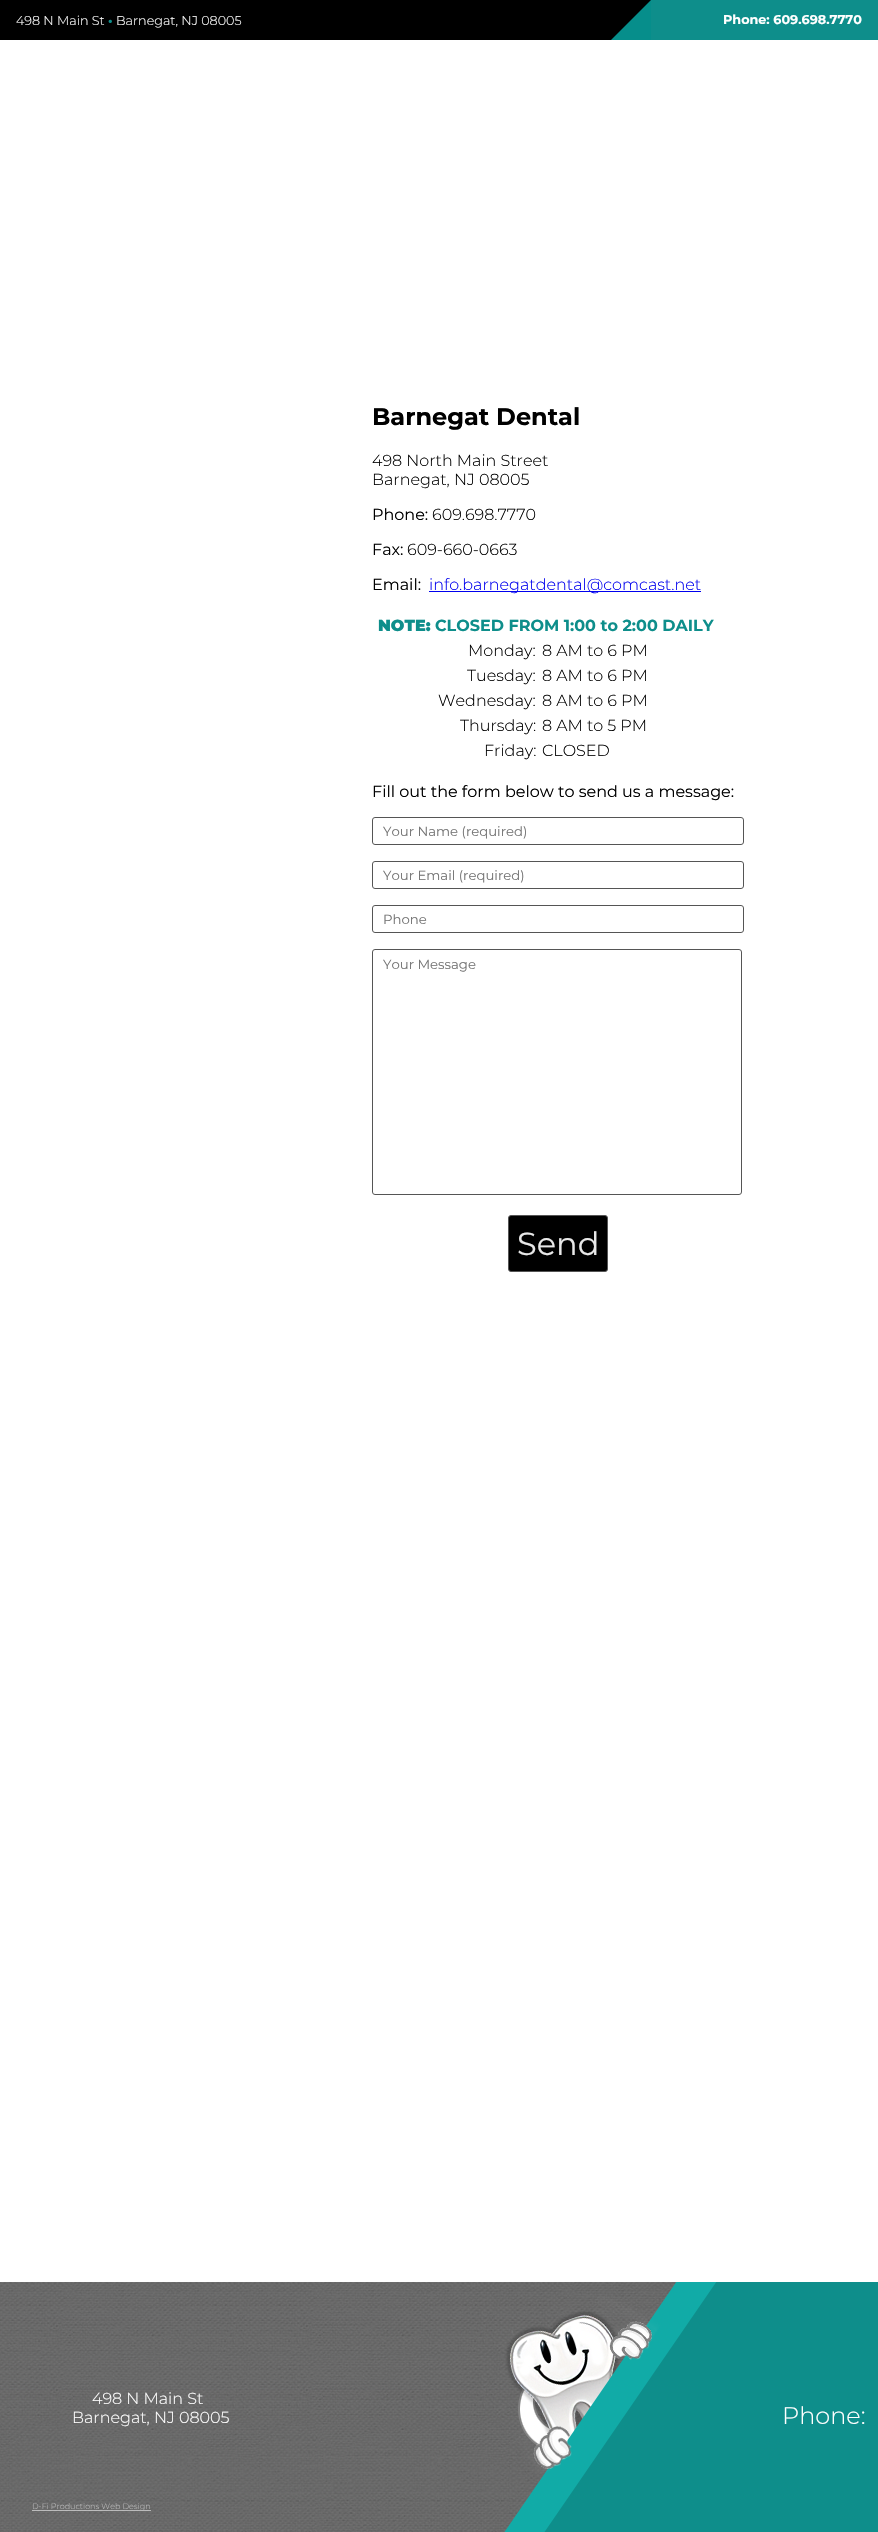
#include "include/core/SkBlurTypes.h"
#include "include/core/SkCanvas.h"
#include "include/core/SkData.h"
#include "include/core/SkFont.h"
#include "include/core/SkFontMgr.h"
#include "include/core/SkImage.h"
#include "include/core/SkMaskFilter.h"
#include "include/core/SkPaint.h"
#include "include/core/SkPathBuilder.h"
#include "include/core/SkTextBlob.h"
#include "include/effects/SkDashPathEffect.h"
#include "include/effects/SkGradientShader.h"
#include "include/utils/SkParsePath.h"

extern sk_sp<SkFontMgr> fontMgr;

void draw(SkCanvas* canvas) {
  SkPaint p;
  p.setAntiAlias(true);
  canvas->clear(SK_ColorWHITE);
  p.setColor(SK_ColorBLACK);
  canvas->drawRect(SkRect::MakeLTRB(0, 0, 651, 40), p);
  p.setColor(SkColorSetRGB(6, 142, 139));
  canvas->drawPath(SkPathBuilder().moveTo(651, 0).lineTo(611, 40).lineTo(651, 40).close().detach(), p);
  p.setColor(SkColorSetRGB(14, 142, 139));
  canvas->drawRect(SkRect::MakeLTRB(651, 0, 878, 40), p);
  p.setColor(SkColorSetRGB(0, 0, 238));
  canvas->drawRect(SkRect::MakeLTRB(429, 591, 701, 592), p);
  p.setStyle(SkPaint::kStroke_Style);
  p.setStrokeWidth(1);
  p.setColor(SkColorSetRGB(85, 85, 85));
  canvas->drawRoundRect(SkRect::MakeLTRB(372.5f, 817.5f, 743.5f, 844.5f), 2.5f, 2.5f, p);
  canvas->drawRoundRect(SkRect::MakeLTRB(372.5f, 861.5f, 743.5f, 888.5f), 2.5f, 2.5f, p);
  canvas->drawRoundRect(SkRect::MakeLTRB(372.5f, 905.5f, 743.5f, 932.5f), 2.5f, 2.5f, p);
  canvas->drawRoundRect(SkRect::MakeLTRB(372.5f, 949.5f, 741.5f, 1194.5f), 2.5f, 2.5f, p);
  p.setStyle(SkPaint::kFill_Style);
  p.setColor(SK_ColorBLACK);
  canvas->drawRoundRect(SkRect::MakeLTRB(508.5f, 1215.5f, 607.5f, 1271.5f), 2.5f, 2.5f, p);
  p.setStyle(SkPaint::kStroke_Style);
  p.setColor(SkColorSetRGB(85, 85, 85));
  canvas->drawRoundRect(SkRect::MakeLTRB(508.5f, 1215.5f, 607.5f, 1271.5f), 2.5f, 2.5f, p);
  canvas->drawImageRect(SkImages::DeferredFromEncodedData(SkData::MakeFromFileName("images/1.png")), SkRect::MakeLTRB(0, 2282, 677, 2532), SkSamplingOptions());
  canvas->drawImageRect(SkImages::DeferredFromEncodedData(SkData::MakeFromFileName("images/2.png")), SkRect::MakeLTRB(504, 2282, 878, 2532), SkSamplingOptions());
  p.setStyle(SkPaint::kFill_Style);
  p.setColor(SkColorSetARGB(140, 255, 255, 255));
  canvas->drawRect(SkRect::MakeLTRB(32, 2510, 151, 2511), p);
  SkFont font1(fontMgr->matchFamilyStyle("Montserrat", SkFontStyle(300, SkFontStyle::kNormal_Width, SkFontStyle::kUpright_Slant)), 12.75f);
  font1.setSubpixel(true);
  p.setColor(SK_ColorWHITE);
  canvas->drawString("498 N Main St", 16, 25, font1, p);
  SkFont font2(fontMgr->matchFamilyStyle("Montserrat", SkFontStyle::Bold()), 12.75f);
  font2.setSubpixel(true);
  p.setColor(SkColorSetRGB(14, 142, 139));
  canvas->drawString("•", 108, 25, font2, p);
  p.setColor(SK_ColorWHITE);
  canvas->drawString("Barnegat, NJ 08005", 116, 25, font1, p);
  canvas->drawString("Phone: 609.698.7770", 723, 24, font2, p);
  SkFont font3(fontMgr->matchFamilyStyle("Montserrat", SkFontStyle::Bold()), 24);
  font3.setSubpixel(true);
  p.setColor(SK_ColorBLACK);
  canvas->drawString("Barnegat Dental", 372, 425, font3, p);
  SkFont font4(fontMgr->matchFamilyStyle("Montserrat", SkFontStyle(300, SkFontStyle::kNormal_Width, SkFontStyle::kUpright_Slant)), 16);
  font4.setSubpixel(true);
  canvas->drawString("498 North Main Street", 372, 466, font4, p);
  canvas->drawString("Barnegat, NJ 08005", 372, 485, font4, p);
  SkFont font5(fontMgr->matchFamilyStyle("Montserrat", SkFontStyle::Normal()), 16);
  font5.setSubpixel(true);
  canvas->drawString("Phone:", 372, 520, font5, p);
  canvas->drawString("609.698.7770", 432, 520, font4, p);
  canvas->drawString("Fax:", 372, 555, font5, p);
  canvas->drawString("609-660-0663", 407, 555, font4, p);
  canvas->drawString("Email:", 372, 590, font5, p);
  p.setColor(SkColorSetRGB(0, 0, 238));
  canvas->drawString("info.barnegatdental@comcast.net", 429, 590, font4, p);
  SkFont font6(fontMgr->matchFamilyStyle("Montserrat", SkFontStyle(900, SkFontStyle::kNormal_Width, SkFontStyle::kUpright_Slant)), 16);
  font6.setSubpixel(true);
  p.setColor(SkColorSetRGB(14, 142, 139));
  canvas->drawString("NOTE:", 378, 631, font6, p);
  SkFont font7(fontMgr->matchFamilyStyle("Montserrat", SkFontStyle::Bold()), 16);
  font7.setSubpixel(true);
  canvas->drawString("CLOSED FROM 1:00 to 2:00 DAILY", 435, 631, font7, p);
  p.setColor(SK_ColorBLACK);
  canvas->drawString("Monday:", 468, 656, font4, p);
  canvas->drawString("8 AM to 6 PM", 542, 656, font4, p);
  canvas->drawString("Tuesday:", 467, 681, font4, p);
  canvas->drawString("8 AM to 6 PM", 542, 681, font4, p);
  canvas->drawString("Wednesday:", 438, 706, font4, p);
  canvas->drawString("8 AM to 6 PM", 542, 706, font4, p);
  canvas->drawString("Thursday:", 460, 731, font4, p);
  canvas->drawString("8 AM to 5 PM", 542, 731, font4, p);
  canvas->drawString("Friday:", 484, 756, font4, p);
  canvas->drawString("CLOSED", 542, 756, font4, p);
  canvas->drawString("Fill out the form below to send us a message:", 372, 797, font5, p);
  SkFont font8(fontMgr->matchFamilyStyle("Montserrat", SkFontStyle::Normal()), 13.25f);
  font8.setSubpixel(true);
  p.setColor(SkColorSetRGB(117, 117, 117));
  canvas->drawString("Your Name (required)", 383, 836, font8, p);
  canvas->drawString("Your Email (required)", 383, 880, font8, p);
  canvas->drawString("Phone", 383, 924, font8, p);
  canvas->drawString("Your Message", 383, 969, font8, p);
  SkFont font9(fontMgr->matchFamilyStyle("Montserrat", SkFontStyle::Normal()), 32);
  font9.setSubpixel(true);
  p.setColor(SkColorSetRGB(232, 232, 232));
  canvas->drawString("Send", 517, 1255, font9, p);
  p.setColor(SK_ColorWHITE);
  canvas->drawString("498 N Main St", 92, 2404, font4, p);
  canvas->drawString("Barnegat, NJ 08005", 72, 2423, font4, p);
  SkFont font10(fontMgr->matchFamilyStyle("Montserrat", SkFontStyle(300, SkFontStyle::kNormal_Width, SkFontStyle::kUpright_Slant)), 24);
  font10.setSubpixel(true);
  canvas->drawString("Phone:", 782, 2424, font10, p);
  SkFont font11(fontMgr->matchFamilyStyle("Montserrat", SkFontStyle(300, SkFontStyle::kNormal_Width, SkFontStyle::kUpright_Slant)), 8);
  font11.setSubpixel(true);
  p.setColor(SkColorSetRGB(188, 188, 188));
  canvas->drawString("D-Fi Productions Web Design", 32, 2509, font11, p);
}
